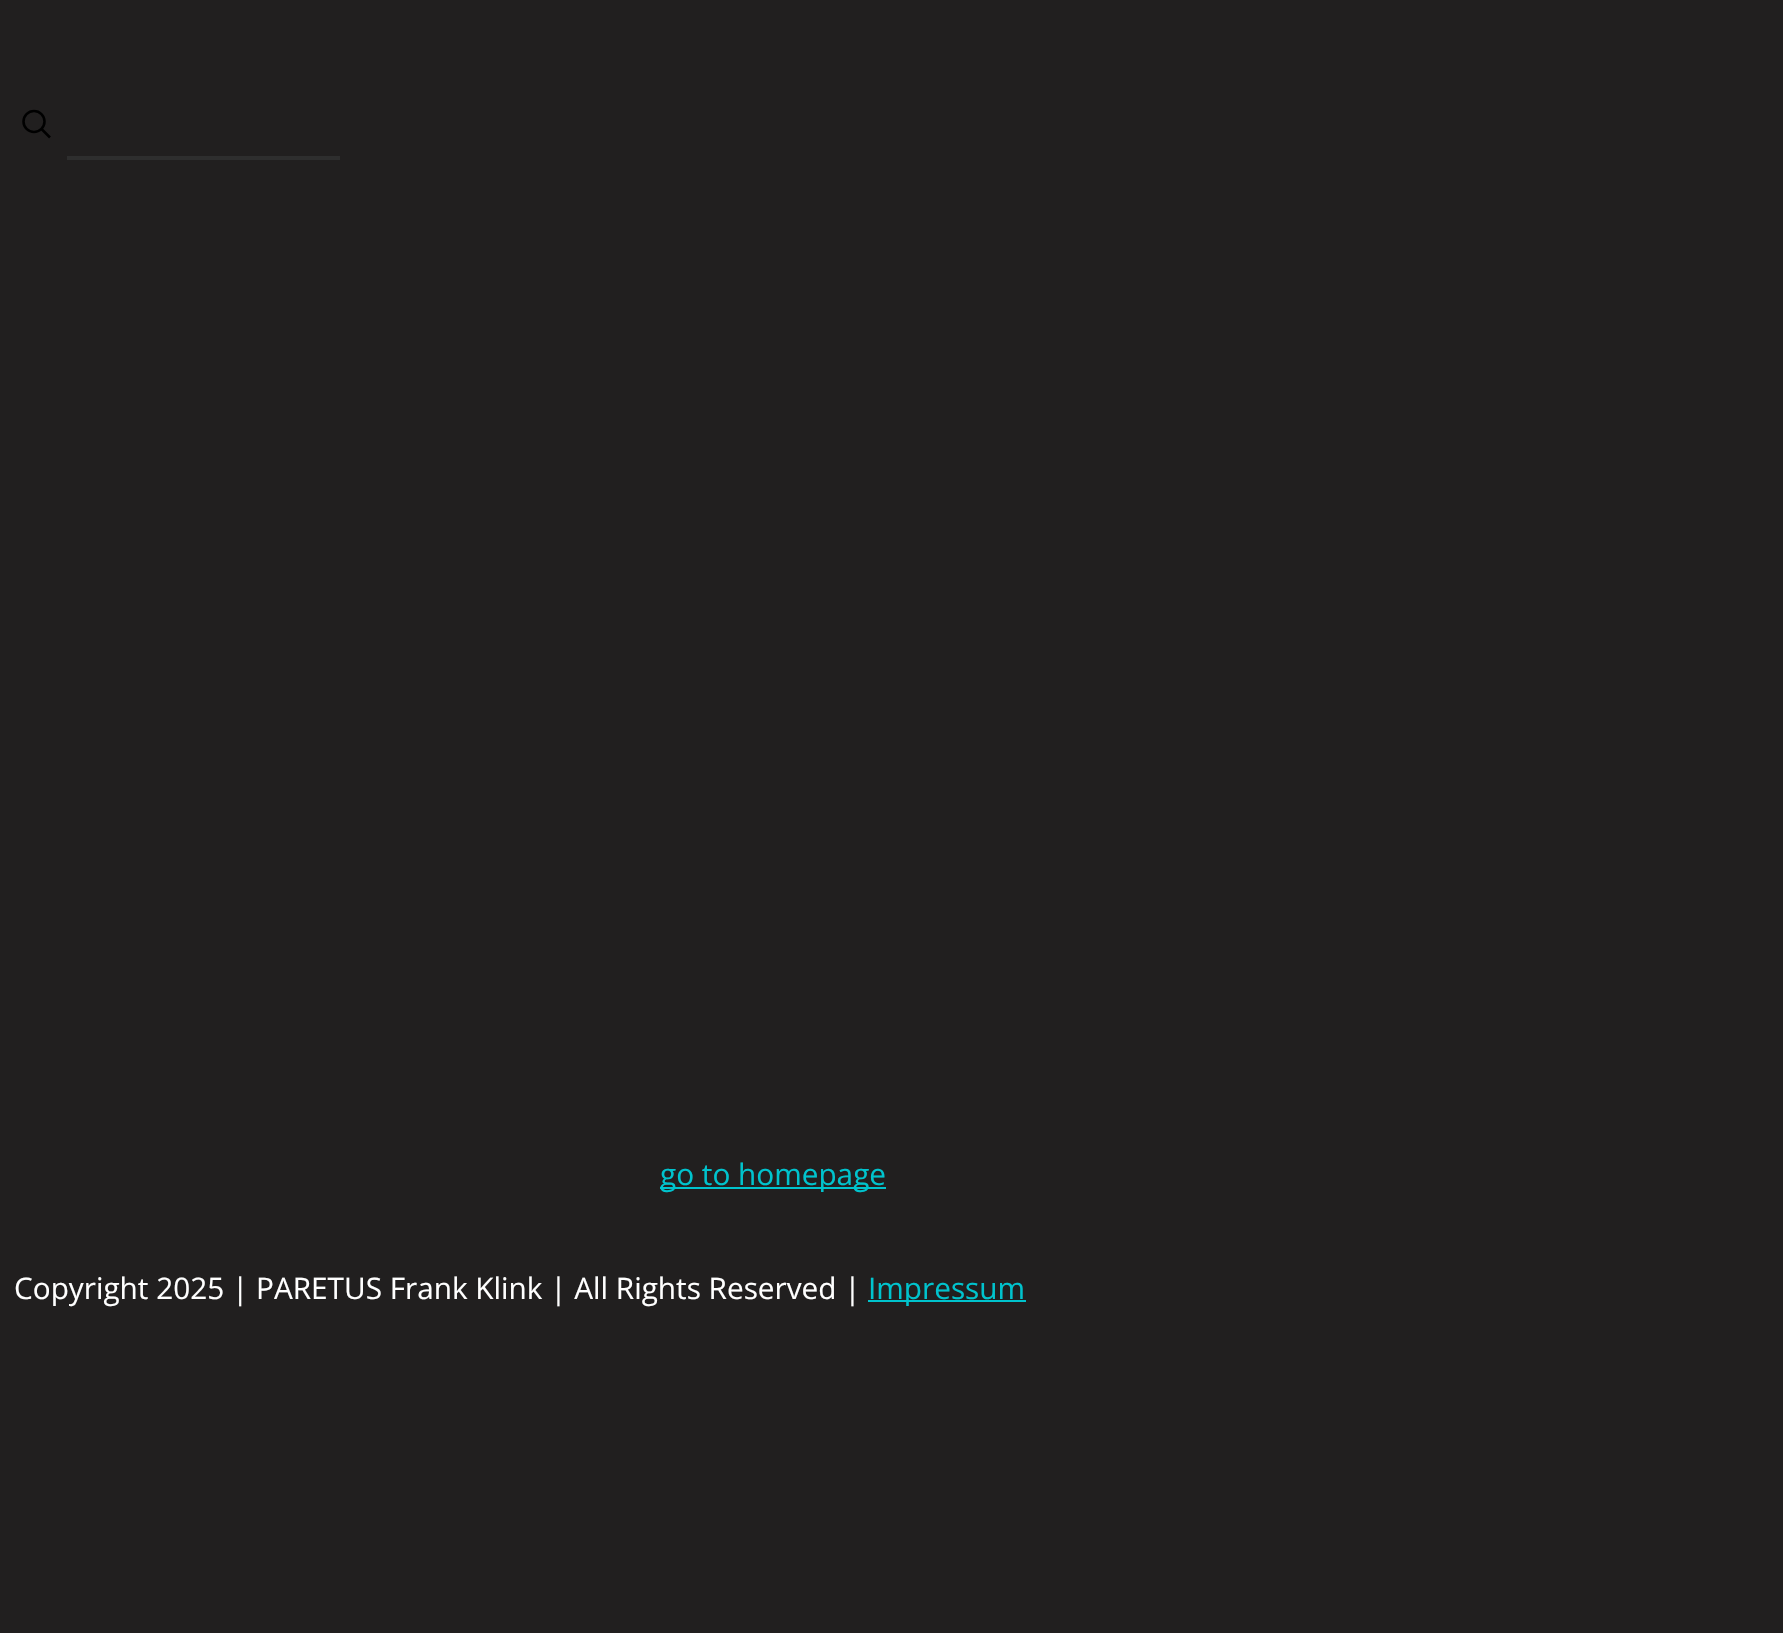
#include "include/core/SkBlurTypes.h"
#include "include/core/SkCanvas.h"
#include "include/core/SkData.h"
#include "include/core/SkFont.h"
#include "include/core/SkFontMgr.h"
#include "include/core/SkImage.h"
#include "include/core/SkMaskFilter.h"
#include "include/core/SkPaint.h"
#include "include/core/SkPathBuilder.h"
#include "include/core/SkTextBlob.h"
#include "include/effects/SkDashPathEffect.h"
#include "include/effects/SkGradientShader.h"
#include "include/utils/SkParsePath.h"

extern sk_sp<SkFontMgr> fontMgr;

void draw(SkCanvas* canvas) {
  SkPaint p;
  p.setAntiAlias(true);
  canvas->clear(SkColorSetRGB(33, 31, 31));
  p.setStyle(SkPaint::kStroke_Style);
  p.setStrokeWidth(2.6f);
  p.setColor(SK_ColorBLACK);
  canvas->drawCircle(34, 121.5f, 10.5f, p);
  canvas->drawPath(SkPathBuilder().moveTo(41.5f, 129).lineTo(50, 137.5f).detach(), p);
  p.setStyle(SkPaint::kFill_Style);
  p.setColor(SkColorSetRGB(46, 46, 46));
  canvas->drawRect(SkRect::MakeLTRB(67, 156, 340, 160), p);
  p.setColor(SkColorSetRGB(0, 195, 205));
  canvas->drawRect(SkRect::MakeLTRB(660, 1187, 886, 1189), p);
  canvas->drawRect(SkRect::MakeLTRB(868, 1300, 1026, 1302), p);
  SkFont font1(fontMgr->matchFamilyStyle("Open Sans", SkFontStyle::Normal()), 29.75f);
  font1.setSubpixel(true);
  canvas->drawString("go to homepage", 660, 1185, font1, p);
  p.setColor(SK_ColorWHITE);
  canvas->drawString("Copyright 2025 | PARETUS Frank Klink | All Rights Reserved |", 14, 1299, font1, p);
  p.setColor(SkColorSetRGB(0, 195, 205));
  canvas->drawString("Impressum", 868, 1299, font1, p);
}
